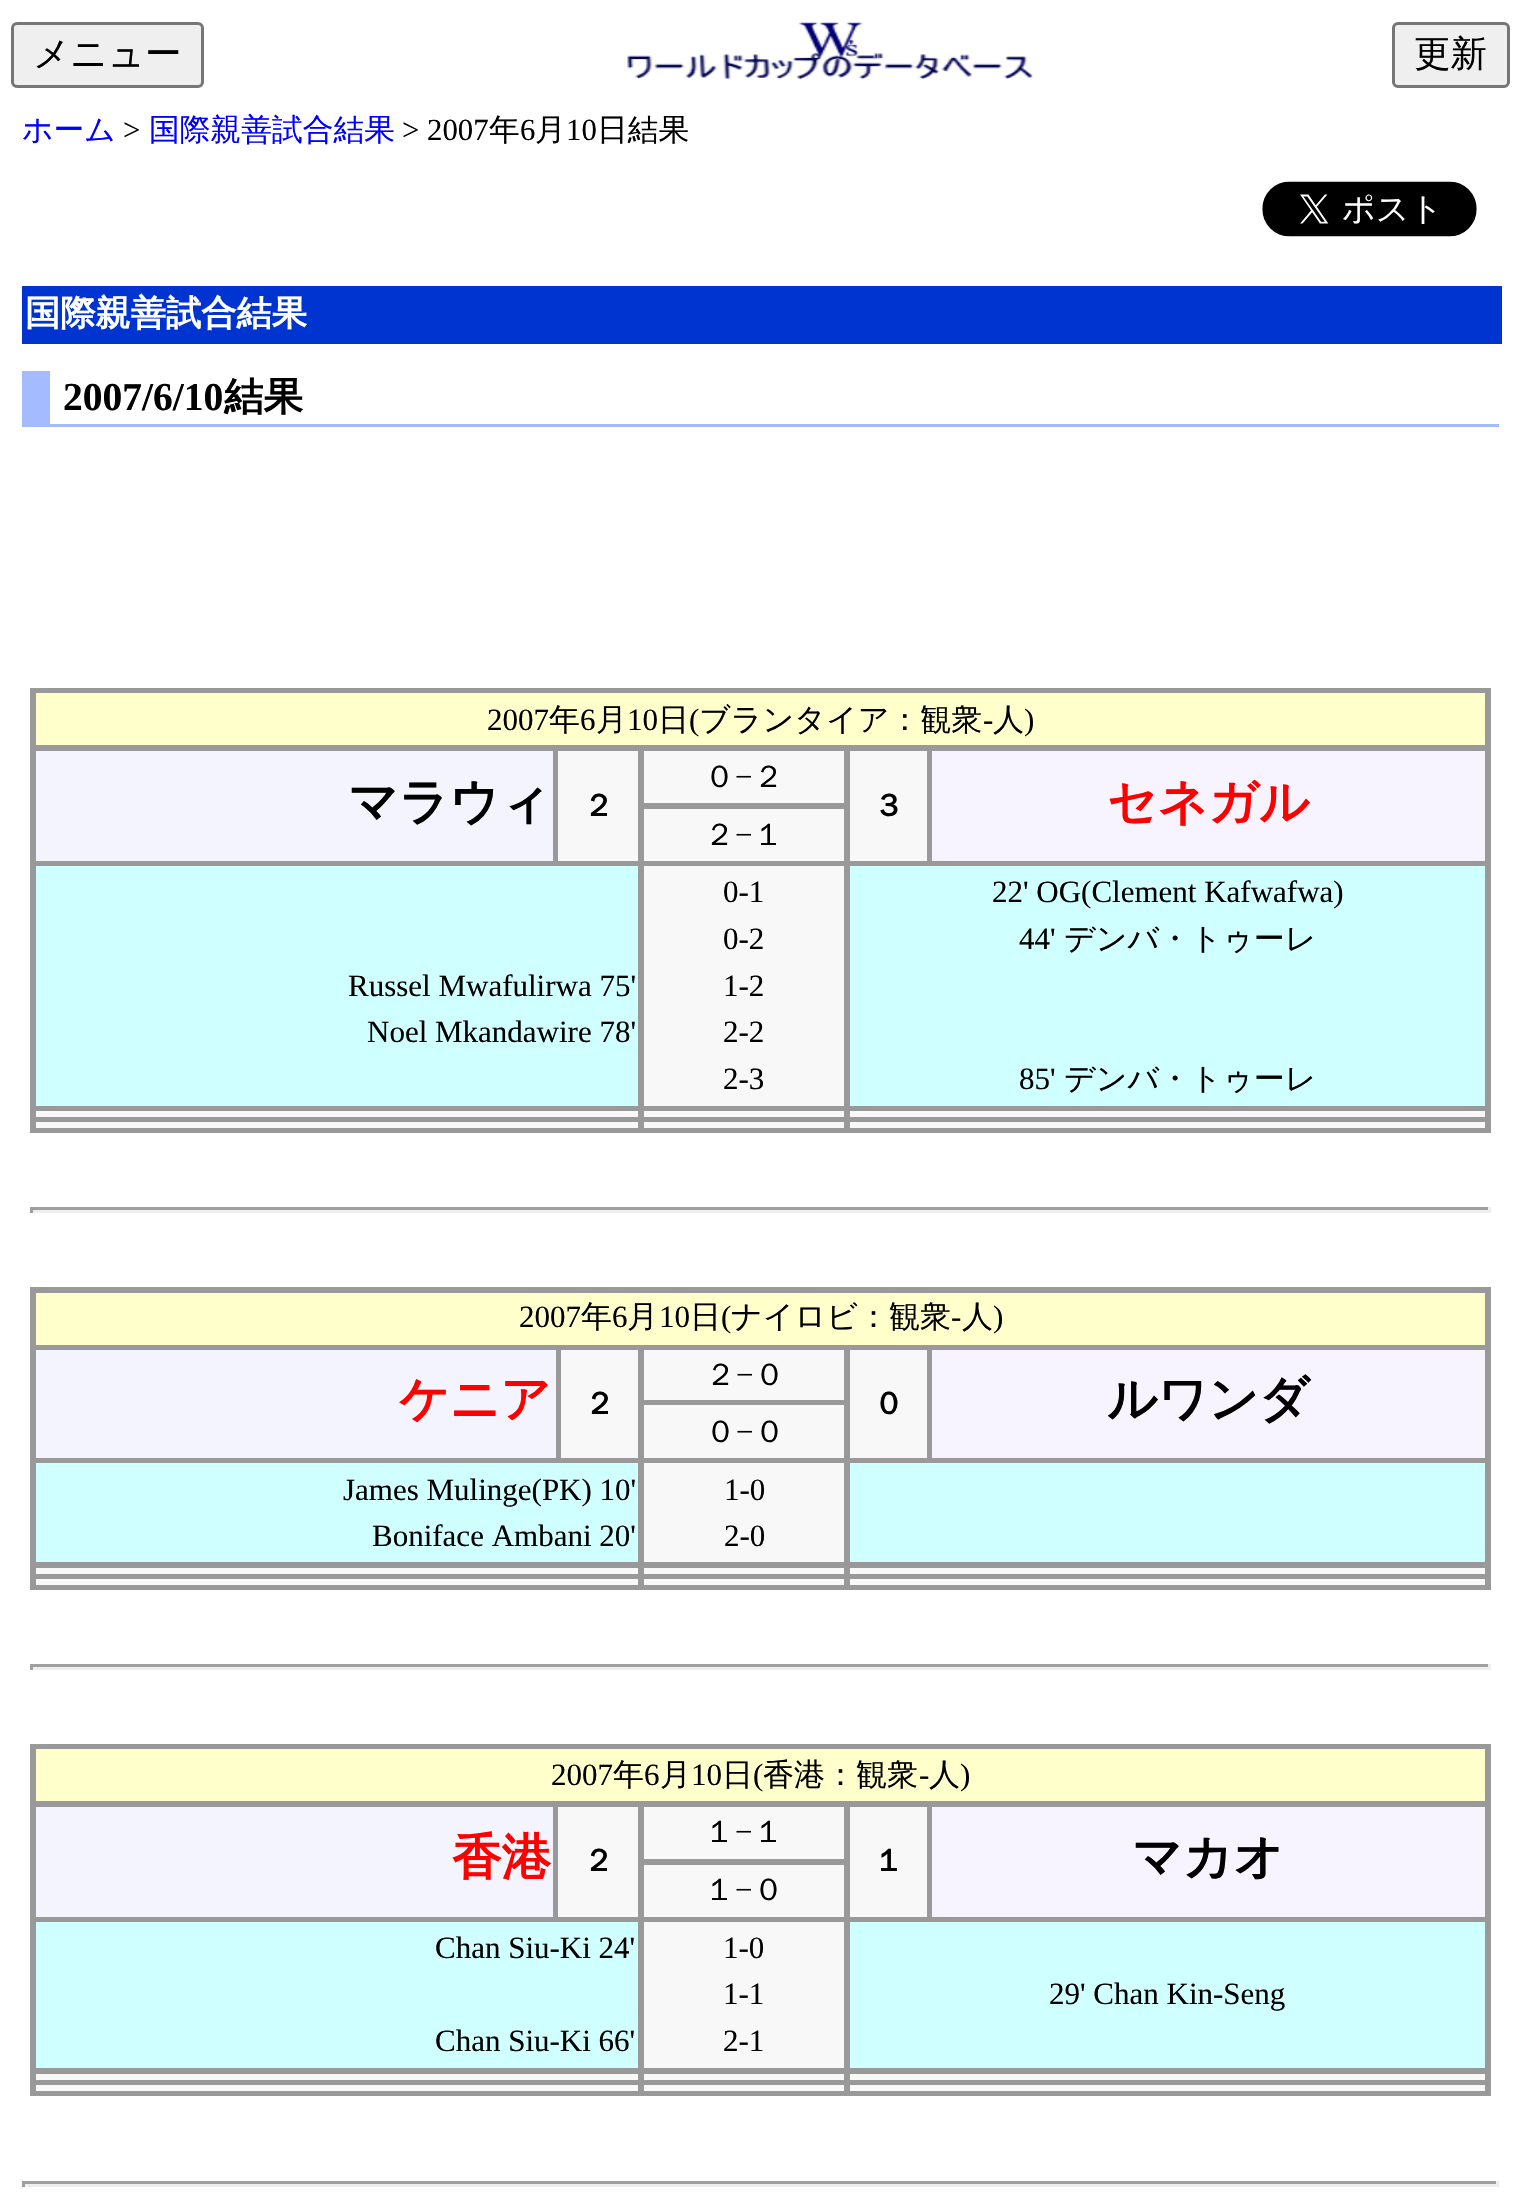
#include "include/core/SkBlurTypes.h"
#include "include/core/SkCanvas.h"
#include "include/core/SkData.h"
#include "include/core/SkFont.h"
#include "include/core/SkFontMgr.h"
#include "include/core/SkImage.h"
#include "include/core/SkMaskFilter.h"
#include "include/core/SkPaint.h"
#include "include/core/SkPathBuilder.h"
#include "include/core/SkTextBlob.h"
#include "include/effects/SkDashPathEffect.h"
#include "include/effects/SkGradientShader.h"
#include "include/utils/SkParsePath.h"

extern sk_sp<SkFontMgr> fontMgr;

void draw(SkCanvas* canvas) {
  SkPaint p;
  p.setAntiAlias(true);
  canvas->clear(SK_ColorWHITE);
  p.setColor(SkColorSetRGB(239, 239, 239));
  canvas->drawRoundRect(SkRect::MakeLTRB(12.5f, 23.5f, 202.5f, 86.5f), 4.5f, 4.5f, p);
  p.setStyle(SkPaint::kStroke_Style);
  p.setStrokeWidth(3);
  p.setColor(SkColorSetRGB(118, 118, 118));
  canvas->drawRoundRect(SkRect::MakeLTRB(12.5f, 23.5f, 202.5f, 86.5f), 4.5f, 4.5f, p);
  canvas->drawImageRect(SkImages::DeferredFromEncodedData(SkData::MakeFromFileName("images/1.png")), SkRect::MakeLTRB(627, 22, 1033, 80), SkSamplingOptions());
  p.setStyle(SkPaint::kFill_Style);
  p.setColor(SkColorSetRGB(239, 239, 239));
  canvas->drawRoundRect(SkRect::MakeLTRB(1393.5f, 23.5f, 1508.5f, 86.5f), 4.5f, 4.5f, p);
  p.setStyle(SkPaint::kStroke_Style);
  p.setColor(SkColorSetRGB(118, 118, 118));
  canvas->drawRoundRect(SkRect::MakeLTRB(1393.5f, 23.5f, 1508.5f, 86.5f), 4.5f, 4.5f, p);
  canvas->drawImageRect(SkImages::DeferredFromEncodedData(SkData::MakeFromFileName("images/2.png")), SkRect::MakeLTRB(1262, 181, 1477, 237), SkSamplingOptions());
  p.setStyle(SkPaint::kFill_Style);
  p.setColor(SkColorSetRGB(0, 52, 208));
  canvas->drawRect(SkRect::MakeLTRB(22, 286, 1502, 344), p);
  p.setColor(SkColorSetRGB(164, 187, 255));
  canvas->drawRect(SkRect::MakeLTRB(22, 424, 1499, 427), p);
  canvas->drawRect(SkRect::MakeLTRB(22, 371, 50, 424), p);
  p.setColor(SkColorSetRGB(153, 153, 153));
  canvas->drawRect(SkRect::MakeLTRB(30, 688, 1491, 1133), p);
  p.setColor(SkColorSetRGB(255, 255, 204));
  canvas->drawRect(SkRect::MakeLTRB(36, 693, 1485, 745), p);
  p.setColor(SkColorSetRGB(248, 248, 248));
  canvas->drawRect(SkRect::MakeLTRB(644, 751, 844, 803), p);
  p.setColor(SkColorSetRGB(244, 244, 255));
  canvas->drawRect(SkRect::MakeLTRB(36, 751, 553, 861), p);
  p.setColor(SkColorSetRGB(248, 248, 248));
  canvas->drawRect(SkRect::MakeLTRB(558, 751, 638, 861), p);
  canvas->drawRect(SkRect::MakeLTRB(850, 751, 927, 861), p);
  p.setColor(SkColorSetRGB(248, 244, 255));
  canvas->drawRect(SkRect::MakeLTRB(932, 751, 1485, 861), p);
  p.setColor(SkColorSetRGB(248, 248, 248));
  canvas->drawRect(SkRect::MakeLTRB(644, 809, 844, 861), p);
  p.setColor(SkColorSetRGB(208, 255, 255));
  canvas->drawRect(SkRect::MakeLTRB(36, 866, 638, 1106), p);
  p.setColor(SkColorSetRGB(248, 248, 248));
  canvas->drawRect(SkRect::MakeLTRB(644, 866, 844, 1106), p);
  p.setColor(SkColorSetRGB(208, 255, 255));
  canvas->drawRect(SkRect::MakeLTRB(850, 866, 1485, 1106), p);
  p.setColor(SkColorSetRGB(248, 248, 248));
  canvas->drawRect(SkRect::MakeLTRB(36, 1111, 638, 1117), p);
  canvas->drawRect(SkRect::MakeLTRB(644, 1111, 844, 1117), p);
  canvas->drawRect(SkRect::MakeLTRB(850, 1111, 1485, 1117), p);
  canvas->drawRect(SkRect::MakeLTRB(36, 1122, 638, 1128), p);
  canvas->drawRect(SkRect::MakeLTRB(644, 1122, 844, 1128), p);
  canvas->drawRect(SkRect::MakeLTRB(850, 1122, 1485, 1128), p);
  p.setColor(SkColorSetRGB(159, 159, 159));
  canvas->drawRect(SkRect::MakeLTRB(30, 1207, 1491, 1210), p);
  p.setColor(SkColorSetRGB(238, 238, 238));
  canvas->drawRect(SkRect::MakeLTRB(1488, 1207, 1491, 1213), p);
  canvas->drawRect(SkRect::MakeLTRB(30, 1210, 1491, 1213), p);
  p.setColor(SkColorSetRGB(159, 159, 159));
  canvas->drawRect(SkRect::MakeLTRB(30, 1207, 33, 1213), p);
  p.setColor(SkColorSetRGB(153, 153, 153));
  canvas->drawRect(SkRect::MakeLTRB(30, 1287, 1491, 1590), p);
  p.setColor(SkColorSetRGB(255, 255, 204));
  canvas->drawRect(SkRect::MakeLTRB(36, 1293, 1485, 1345), p);
  p.setColor(SkColorSetRGB(244, 244, 255));
  canvas->drawRect(SkRect::MakeLTRB(36, 1350, 556, 1458), p);
  p.setColor(SkColorSetRGB(248, 248, 248));
  canvas->drawRect(SkRect::MakeLTRB(561, 1350, 638, 1458), p);
  canvas->drawRect(SkRect::MakeLTRB(644, 1350, 844, 1400), p);
  canvas->drawRect(SkRect::MakeLTRB(850, 1350, 927, 1458), p);
  p.setColor(SkColorSetRGB(248, 244, 255));
  canvas->drawRect(SkRect::MakeLTRB(932, 1350, 1485, 1458), p);
  p.setColor(SkColorSetRGB(248, 248, 248));
  canvas->drawRect(SkRect::MakeLTRB(644, 1405, 844, 1458), p);
  p.setColor(SkColorSetRGB(208, 255, 255));
  canvas->drawRect(SkRect::MakeLTRB(36, 1463, 638, 1562), p);
  p.setColor(SkColorSetRGB(248, 248, 248));
  canvas->drawRect(SkRect::MakeLTRB(644, 1463, 844, 1562), p);
  p.setColor(SkColorSetRGB(208, 255, 255));
  canvas->drawRect(SkRect::MakeLTRB(850, 1463, 1485, 1562), p);
  p.setColor(SkColorSetRGB(248, 248, 248));
  canvas->drawRect(SkRect::MakeLTRB(36, 1568, 638, 1574), p);
  canvas->drawRect(SkRect::MakeLTRB(644, 1568, 844, 1574), p);
  canvas->drawRect(SkRect::MakeLTRB(850, 1568, 1485, 1574), p);
  canvas->drawRect(SkRect::MakeLTRB(36, 1579, 638, 1585), p);
  canvas->drawRect(SkRect::MakeLTRB(644, 1579, 844, 1585), p);
  canvas->drawRect(SkRect::MakeLTRB(850, 1579, 1485, 1585), p);
  p.setColor(SkColorSetRGB(159, 159, 159));
  canvas->drawRect(SkRect::MakeLTRB(30, 1664, 1491, 1667), p);
  p.setColor(SkColorSetRGB(238, 238, 238));
  canvas->drawRect(SkRect::MakeLTRB(1488, 1664, 1491, 1670), p);
  canvas->drawRect(SkRect::MakeLTRB(30, 1667, 1491, 1670), p);
  p.setColor(SkColorSetRGB(159, 159, 159));
  canvas->drawRect(SkRect::MakeLTRB(30, 1664, 33, 1670), p);
  p.setColor(SkColorSetRGB(153, 153, 153));
  canvas->drawRect(SkRect::MakeLTRB(30, 1744, 1491, 2096), p);
  p.setColor(SkColorSetRGB(255, 255, 204));
  canvas->drawRect(SkRect::MakeLTRB(36, 1749, 1485, 1801), p);
  p.setColor(SkColorSetRGB(244, 244, 255));
  canvas->drawRect(SkRect::MakeLTRB(36, 1807, 553, 1917), p);
  p.setColor(SkColorSetRGB(248, 248, 248));
  canvas->drawRect(SkRect::MakeLTRB(558, 1807, 638, 1917), p);
  canvas->drawRect(SkRect::MakeLTRB(644, 1807, 844, 1859), p);
  canvas->drawRect(SkRect::MakeLTRB(850, 1807, 927, 1917), p);
  p.setColor(SkColorSetRGB(248, 244, 255));
  canvas->drawRect(SkRect::MakeLTRB(932, 1807, 1485, 1917), p);
  p.setColor(SkColorSetRGB(248, 248, 248));
  canvas->drawRect(SkRect::MakeLTRB(644, 1865, 844, 1917), p);
  p.setColor(SkColorSetRGB(208, 255, 255));
  canvas->drawRect(SkRect::MakeLTRB(36, 1922, 638, 2068), p);
  p.setColor(SkColorSetRGB(248, 248, 248));
  canvas->drawRect(SkRect::MakeLTRB(644, 1922, 844, 2068), p);
  p.setColor(SkColorSetRGB(208, 255, 255));
  canvas->drawRect(SkRect::MakeLTRB(850, 1922, 1485, 2068), p);
  p.setColor(SkColorSetRGB(248, 248, 248));
  canvas->drawRect(SkRect::MakeLTRB(36, 2074, 638, 2080), p);
  canvas->drawRect(SkRect::MakeLTRB(644, 2074, 844, 2080), p);
  canvas->drawRect(SkRect::MakeLTRB(850, 2074, 1485, 2080), p);
  canvas->drawRect(SkRect::MakeLTRB(36, 2085, 638, 2091), p);
  canvas->drawRect(SkRect::MakeLTRB(644, 2085, 844, 2091), p);
  canvas->drawRect(SkRect::MakeLTRB(850, 2085, 1485, 2091), p);
  p.setColor(SkColorSetRGB(159, 159, 159));
  canvas->drawRect(SkRect::MakeLTRB(22, 2181, 1499, 2184), p);
  p.setColor(SkColorSetRGB(238, 238, 238));
  canvas->drawRect(SkRect::MakeLTRB(1496, 2181, 1499, 2187), p);
  canvas->drawRect(SkRect::MakeLTRB(22, 2184, 1499, 2187), p);
  p.setColor(SkColorSetRGB(159, 159, 159));
  canvas->drawRect(SkRect::MakeLTRB(22, 2181, 25, 2187), p);
  SkFont font1(fontMgr->matchFamilyStyle("WenQuanYi Zen Hei", SkFontStyle(500, SkFontStyle::kNormal_Width, SkFontStyle::kUpright_Slant)), 36.5f);
  font1.setSubpixel(true);
  p.setColor(SK_ColorBLACK);
  canvas->drawString("メニュー", 33, 66, font1, p);
  canvas->drawString("更新", 1414, 66, font1, p);
  SkFont font2(fontMgr->matchFamilyStyle("WenQuanYi Zen Hei", SkFontStyle(500, SkFontStyle::kNormal_Width, SkFontStyle::kUpright_Slant)), 30.75f);
  font2.setSubpixel(true);
  p.setColor(SkColorSetRGB(0, 0, 255));
  canvas->drawString("ホーム", 22, 140, font2, p);
  SkFont font3(fontMgr->matchFamilyStyle("Liberation Serif", SkFontStyle::Normal()), 30.75f);
  font3.setSubpixel(true);
  p.setColor(SK_ColorBLACK);
  canvas->drawString(">", 123, 140, font3, p);
  p.setColor(SkColorSetRGB(0, 0, 255));
  canvas->drawString("国際親善試合結果", 149, 140, font2, p);
  p.setColor(SK_ColorBLACK);
  canvas->drawString("> 2007", 402, 140, font3, p);
  canvas->drawString("年", 489, 140, font2, p);
  canvas->drawString("6", 520, 140, font3, p);
  canvas->drawString("月", 535, 140, font2, p);
  canvas->drawString("10", 566, 140, font3, p);
  canvas->drawString("日結果", 597, 140, font2, p);
  SkFont font4(fontMgr->matchFamilyStyle("WenQuanYi Zen Hei", SkFontStyle::Bold()), 35.25f);
  font4.setSubpixel(true);
  p.setColor(SK_ColorWHITE);
  canvas->drawString("国際親善試合結果", 25, 325, font4, p);
  SkFont font5(fontMgr->matchFamilyStyle("Liberation Serif", SkFontStyle::Bold()), 39.5f);
  font5.setSubpixel(true);
  p.setColor(SK_ColorBLACK);
  canvas->drawString("2007/6/10", 63, 410, font5, p);
  SkFont font6(fontMgr->matchFamilyStyle("WenQuanYi Zen Hei", SkFontStyle::Bold()), 39.5f);
  font6.setSubpixel(true);
  canvas->drawString("結果", 224, 410, font6, p);
  SkFont font7(fontMgr->matchFamilyStyle("Liberation Serif", SkFontStyle::Normal()), 31);
  font7.setSubpixel(true);
  canvas->drawString("2007", 487, 730, font7, p);
  SkFont font8(fontMgr->matchFamilyStyle("WenQuanYi Zen Hei", SkFontStyle(500, SkFontStyle::kNormal_Width, SkFontStyle::kUpright_Slant)), 31);
  font8.setSubpixel(true);
  canvas->drawString("年", 549, 730, font8, p);
  canvas->drawString("6", 580, 730, font7, p);
  canvas->drawString("月", 596, 730, font8, p);
  canvas->drawString("10", 627, 730, font7, p);
  canvas->drawString("日", 658, 730, font8, p);
  canvas->drawString("(", 689, 730, font7, p);
  canvas->drawString("ブランタイア：観衆", 699, 730, font8, p);
  canvas->drawString("-", 983, 730, font7, p);
  canvas->drawString("人", 993, 730, font8, p);
  canvas->drawString(")", 1024, 730, font7, p);
  canvas->drawString("０", 704, 787, font8, p);
  canvas->drawString("−", 735, 787, font7, p);
  canvas->drawString("２", 753, 787, font8, p);
  SkFont font9(fontMgr->matchFamilyStyle("WenQuanYi Zen Hei", SkFontStyle::Bold()), 49.5f);
  font9.setSubpixel(true);
  canvas->drawString("マラウィ", 348, 819, font9, p);
  SkFont font10(fontMgr->matchFamilyStyle("WenQuanYi Zen Hei", SkFontStyle::Bold()), 31);
  font10.setSubpixel(true);
  canvas->drawString("２", 583, 816, font10, p);
  canvas->drawString("３", 873, 816, font10, p);
  p.setColor(SkColorSetRGB(255, 0, 0));
  canvas->drawString("セネガル", 1107, 819, font9, p);
  p.setColor(SK_ColorBLACK);
  canvas->drawString("２", 704, 845, font8, p);
  canvas->drawString("−", 735, 845, font7, p);
  canvas->drawString("１", 753, 845, font8, p);
  canvas->drawString("Russel Mwafulirwa 75'", 348, 996, font7, p);
  canvas->drawString("Noel Mkandawire 78'", 367, 1042, font7, p);
  canvas->drawString("0-1", 723, 902, font7, p);
  canvas->drawString("0-2", 723, 949, font7, p);
  canvas->drawString("1-2", 723, 996, font7, p);
  canvas->drawString("2-2", 723, 1042, font7, p);
  canvas->drawString("2-3", 723, 1089, font7, p);
  canvas->drawString("22' OG(Clement Kafwafwa)", 992, 902, font7, p);
  canvas->drawString("44'", 1019, 949, font7, p);
  canvas->drawString("デンバ・トゥーレ", 1064, 949, font8, p);
  canvas->drawString("85'", 1019, 1089, font7, p);
  canvas->drawString("デンバ・トゥーレ", 1064, 1089, font8, p);
  canvas->drawString("2007", 519, 1327, font7, p);
  canvas->drawString("年", 581, 1327, font8, p);
  canvas->drawString("6", 612, 1327, font7, p);
  canvas->drawString("月", 627, 1327, font8, p);
  canvas->drawString("10", 659, 1327, font7, p);
  canvas->drawString("日", 690, 1327, font8, p);
  canvas->drawString("(", 721, 1327, font7, p);
  canvas->drawString("ナイロビ：観衆", 731, 1327, font8, p);
  canvas->drawString("-", 951, 1327, font7, p);
  canvas->drawString("人", 962, 1327, font8, p);
  canvas->drawString(")", 993, 1327, font7, p);
  p.setColor(SkColorSetRGB(255, 0, 0));
  canvas->drawString("ケニア", 399, 1416, font9, p);
  p.setColor(SK_ColorBLACK);
  canvas->drawString("２", 584, 1414, font10, p);
  canvas->drawString("２", 705, 1385, font8, p);
  canvas->drawString("−", 736, 1385, font7, p);
  canvas->drawString("０", 754, 1385, font8, p);
  canvas->drawString("０", 873, 1414, font10, p);
  canvas->drawString("ルワンダ", 1107, 1416, font9, p);
  canvas->drawString("０", 705, 1442, font8, p);
  canvas->drawString("−", 736, 1442, font7, p);
  canvas->drawString("０", 754, 1442, font8, p);
  canvas->drawString("James Mulinge(PK) 10'", 343, 1500, font7, p);
  canvas->drawString("Boniface Ambani 20'", 372, 1546, font7, p);
  canvas->drawString("1-0", 724, 1500, font7, p);
  canvas->drawString("2-0", 724, 1546, font7, p);
  canvas->drawString("2007", 551, 1785, font7, p);
  canvas->drawString("年", 613, 1785, font8, p);
  canvas->drawString("6", 644, 1785, font7, p);
  canvas->drawString("月", 660, 1785, font8, p);
  canvas->drawString("10", 691, 1785, font7, p);
  canvas->drawString("日", 722, 1785, font8, p);
  canvas->drawString("(", 753, 1785, font7, p);
  canvas->drawString("香港：観衆", 763, 1785, font8, p);
  canvas->drawString("-", 919, 1785, font7, p);
  canvas->drawString("人", 929, 1785, font8, p);
  canvas->drawString(")", 960, 1785, font7, p);
  p.setColor(SkColorSetRGB(255, 0, 0));
  canvas->drawString("香港", 452, 1874, font9, p);
  p.setColor(SK_ColorBLACK);
  canvas->drawString("２", 583, 1871, font10, p);
  canvas->drawString("１", 704, 1842, font8, p);
  canvas->drawString("−", 735, 1842, font7, p);
  canvas->drawString("１", 753, 1842, font8, p);
  canvas->drawString("１", 873, 1871, font10, p);
  canvas->drawString("マカオ", 1132, 1874, font9, p);
  canvas->drawString("１", 704, 1900, font8, p);
  canvas->drawString("−", 735, 1900, font7, p);
  canvas->drawString("０", 753, 1900, font8, p);
  canvas->drawString("Chan Siu-Ki 24'", 435, 1958, font7, p);
  canvas->drawString("Chan Siu-Ki 66'", 435, 2051, font7, p);
  canvas->drawString("1-0", 723, 1958, font7, p);
  canvas->drawString("1-1", 723, 2004, font7, p);
  canvas->drawString("2-1", 723, 2051, font7, p);
  canvas->drawString("29' Chan Kin-Seng", 1049, 2004, font7, p);
}
